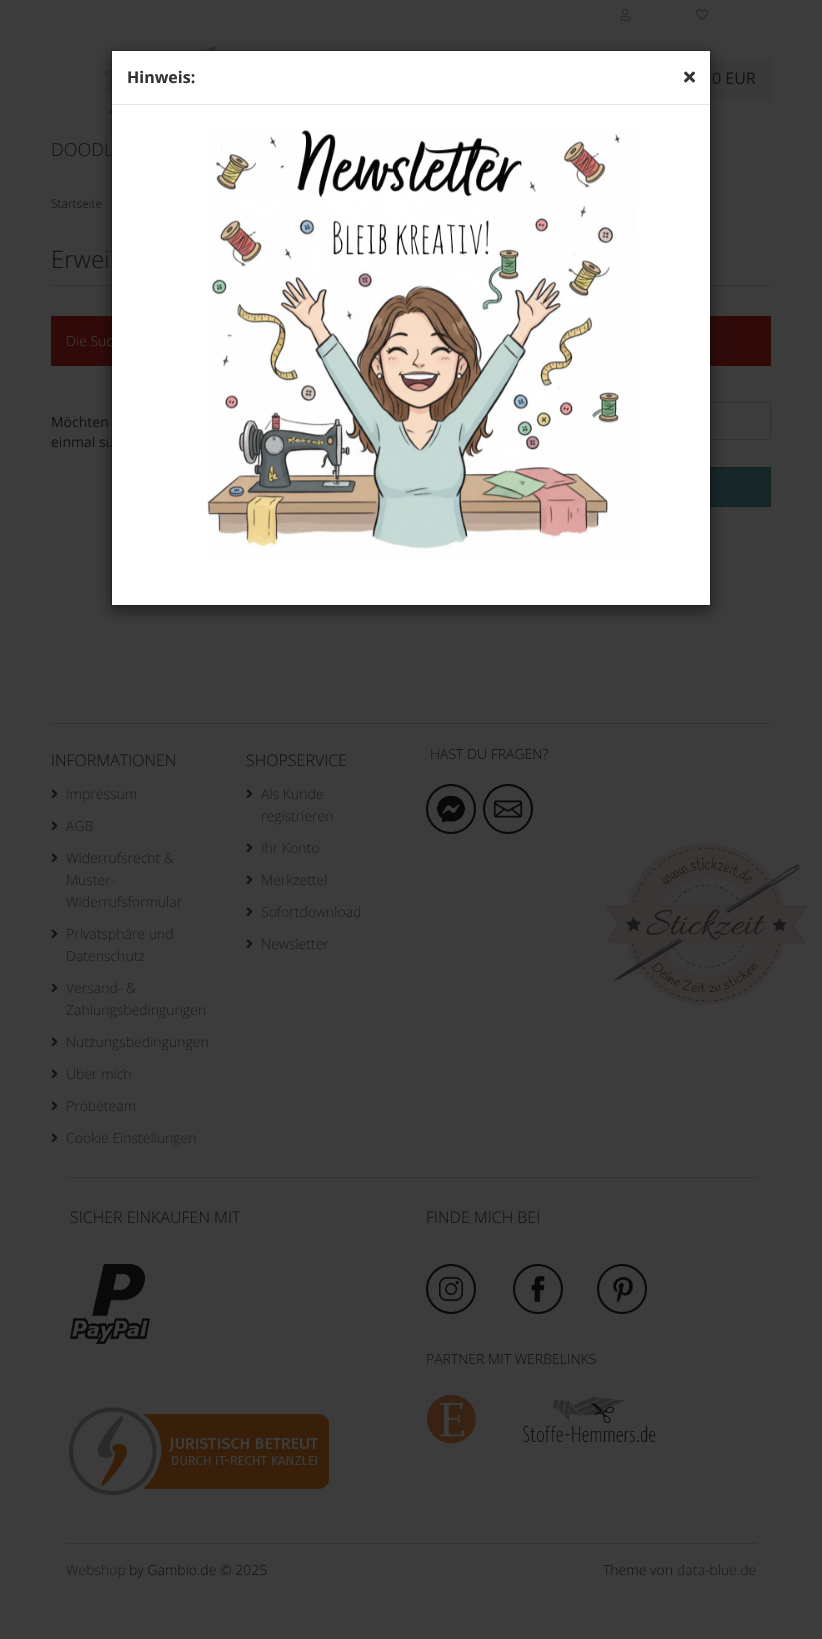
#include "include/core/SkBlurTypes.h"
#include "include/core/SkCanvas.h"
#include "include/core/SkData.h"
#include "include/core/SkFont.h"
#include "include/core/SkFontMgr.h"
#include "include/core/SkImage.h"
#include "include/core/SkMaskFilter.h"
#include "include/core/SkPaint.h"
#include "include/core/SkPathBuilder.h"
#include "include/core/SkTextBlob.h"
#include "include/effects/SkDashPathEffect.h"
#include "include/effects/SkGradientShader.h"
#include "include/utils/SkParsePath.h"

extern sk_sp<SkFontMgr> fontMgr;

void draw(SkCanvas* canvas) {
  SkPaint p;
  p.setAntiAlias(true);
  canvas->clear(SkColorSetRGB(60, 60, 60));
  canvas->drawImageRect(SkImages::DeferredFromEncodedData(SkData::MakeFromFileName("images/5.png")), SkRect::MakeLTRB(103, 46, 217, 114), SkSamplingOptions());
  p.setColor(SkColorSetRGB(57, 57, 57));
  canvas->drawRect(SkRect::MakeLTRB(710, 60, 771, 100), p);
  p.setColor(SkColorSetRGB(50, 50, 50));
  canvas->drawRect(SkRect::MakeLTRB(51, 285, 771, 286), p);
  p.setColor(SkColorSetRGB(48, 10, 9));
  canvas->drawRect(SkRect::MakeLTRB(51, 316, 771, 366), p);
  p.setStyle(SkPaint::kStroke_Style);
  p.setStrokeWidth(1);
  p.setColor(SkColorSetRGB(50, 50, 50));
  canvas->drawRect(SkRect::MakeLTRB(239.5f, 402.5f, 770.5f, 439.5f), p);
  p.setStyle(SkPaint::kFill_Style);
  p.setColor(SkColorSetRGB(23, 39, 40));
  canvas->drawRect(SkRect::MakeLTRB(710, 468, 770, 506), p);
  p.setStyle(SkPaint::kStroke_Style);
  p.setColor(SkColorSetRGB(19, 34, 35));
  canvas->drawRect(SkRect::MakeLTRB(551.5f, 467.5f, 770.5f, 506.5f), p);
  p.setStyle(SkPaint::kFill_Style);
  p.setColor(SkColorSetARGB(128, 0, 0, 0));
  p.setMaskFilter(SkMaskFilter::MakeBlur(kNormal_SkBlurStyle, 7.5f));
  canvas->drawRect(SkRect::MakeLTRB(111, 55, 711, 611), p);
  p.setMaskFilter(nullptr);
  canvas->drawImageRect(SkImages::DeferredFromEncodedData(SkData::MakeFromFileName("images/3.png")), SkRect::MakeLTRB(620, 8, 631, 21), SkSamplingOptions());
  canvas->drawImageRect(SkImages::DeferredFromEncodedData(SkData::MakeFromFileName("images/4.png")), SkRect::MakeLTRB(696, 9, 708, 20), SkSamplingOptions());
  p.setColor(SkColorSetRGB(50, 50, 50));
  canvas->drawRect(SkRect::MakeLTRB(51, 723, 771, 724), p);
  canvas->drawImageRect(SkImages::DeferredFromEncodedData(SkData::MakeFromFileName("images/6.png")), SkRect::MakeLTRB(51, 789, 58, 799), SkSamplingOptions());
  canvas->drawImageRect(SkImages::DeferredFromEncodedData(SkData::MakeFromFileName("images/6.png")), SkRect::MakeLTRB(51, 821, 58, 831), SkSamplingOptions());
  canvas->drawImageRect(SkImages::DeferredFromEncodedData(SkData::MakeFromFileName("images/6.png")), SkRect::MakeLTRB(51, 853, 58, 863), SkSamplingOptions());
  canvas->drawImageRect(SkImages::DeferredFromEncodedData(SkData::MakeFromFileName("images/6.png")), SkRect::MakeLTRB(51, 929, 58, 939), SkSamplingOptions());
  canvas->drawImageRect(SkImages::DeferredFromEncodedData(SkData::MakeFromFileName("images/6.png")), SkRect::MakeLTRB(51, 983, 58, 993), SkSamplingOptions());
  canvas->drawImageRect(SkImages::DeferredFromEncodedData(SkData::MakeFromFileName("images/6.png")), SkRect::MakeLTRB(51, 1037, 58, 1047), SkSamplingOptions());
  canvas->drawImageRect(SkImages::DeferredFromEncodedData(SkData::MakeFromFileName("images/6.png")), SkRect::MakeLTRB(51, 1069, 58, 1079), SkSamplingOptions());
  canvas->drawImageRect(SkImages::DeferredFromEncodedData(SkData::MakeFromFileName("images/6.png")), SkRect::MakeLTRB(51, 1101, 58, 1111), SkSamplingOptions());
  canvas->drawImageRect(SkImages::DeferredFromEncodedData(SkData::MakeFromFileName("images/6.png")), SkRect::MakeLTRB(51, 1133, 58, 1143), SkSamplingOptions());
  canvas->drawImageRect(SkImages::DeferredFromEncodedData(SkData::MakeFromFileName("images/6.png")), SkRect::MakeLTRB(246, 789, 253, 799), SkSamplingOptions());
  canvas->drawImageRect(SkImages::DeferredFromEncodedData(SkData::MakeFromFileName("images/6.png")), SkRect::MakeLTRB(246, 843, 253, 853), SkSamplingOptions());
  canvas->drawImageRect(SkImages::DeferredFromEncodedData(SkData::MakeFromFileName("images/6.png")), SkRect::MakeLTRB(246, 875, 253, 885), SkSamplingOptions());
  canvas->drawImageRect(SkImages::DeferredFromEncodedData(SkData::MakeFromFileName("images/6.png")), SkRect::MakeLTRB(246, 907, 253, 917), SkSamplingOptions());
  canvas->drawImageRect(SkImages::DeferredFromEncodedData(SkData::MakeFromFileName("images/6.png")), SkRect::MakeLTRB(246, 939, 253, 949), SkSamplingOptions());
  canvas->drawImageRect(SkImages::DeferredFromEncodedData(SkData::MakeFromFileName("images/7.png")), SkRect::MakeLTRB(426, 784, 476, 834), SkSamplingOptions());
  canvas->drawImageRect(SkImages::DeferredFromEncodedData(SkData::MakeFromFileName("images/8.png")), SkRect::MakeLTRB(483, 784, 533, 834), SkSamplingOptions());
  canvas->drawImageRect(SkImages::DeferredFromEncodedData(SkData::MakeFromFileName("images/9.png")), SkRect::MakeLTRB(606, 843, 806, 1005), SkSamplingOptions());
  canvas->drawRect(SkRect::MakeLTRB(66, 1177, 756, 1178), p);
  canvas->drawRect(SkRect::MakeLTRB(66, 1543, 756, 1544), p);
  canvas->drawImageRect(SkImages::DeferredFromEncodedData(SkData::MakeFromFileName("images/10.png")), SkRect::MakeLTRB(70, 1264, 150, 1344), SkSamplingOptions());
  canvas->drawImageRect(SkImages::DeferredFromEncodedData(SkData::MakeFromFileName("images/11.png")), SkRect::MakeLTRB(68, 1407, 329, 1495), SkSamplingOptions());
  canvas->drawImageRect(SkImages::DeferredFromEncodedData(SkData::MakeFromFileName("images/12.png")), SkRect::MakeLTRB(426, 1264, 476, 1314), SkSamplingOptions());
  canvas->drawImageRect(SkImages::DeferredFromEncodedData(SkData::MakeFromFileName("images/13.png")), SkRect::MakeLTRB(513, 1264, 563, 1314), SkSamplingOptions());
  canvas->drawImageRect(SkImages::DeferredFromEncodedData(SkData::MakeFromFileName("images/14.png")), SkRect::MakeLTRB(597, 1264, 647, 1314), SkSamplingOptions());
  canvas->drawImageRect(SkImages::DeferredFromEncodedData(SkData::MakeFromFileName("images/15.png")), SkRect::MakeLTRB(426, 1394, 476, 1444), SkSamplingOptions());
  canvas->drawImageRect(SkImages::DeferredFromEncodedData(SkData::MakeFromFileName("images/16.png")), SkRect::MakeLTRB(523, 1397, 656, 1443), SkSamplingOptions());
  SkFont font1(fontMgr->matchFamilyStyle("Open Sans", SkFontStyle::Normal()), 16);
  font1.setSubpixel(true);
  p.setColor(SkColorSetRGB(19, 19, 19));
  canvas->drawString("0 EUR", 712, 84, font1, p);
  SkFont font2(fontMgr->matchFamilyStyle("Open Sans", SkFontStyle(300, SkFontStyle::kNormal_Width, SkFontStyle::kUpright_Slant)), 18);
  font2.setSubpixel(true);
  canvas->drawString("DOODL", 51, 156, font2, p);
  SkFont font3(fontMgr->matchFamilyStyle("Open Sans", SkFontStyle(300, SkFontStyle::kNormal_Width, SkFontStyle::kUpright_Slant)), 12);
  font3.setSubpixel(true);
  canvas->drawString("Startseite", 51, 208, font3, p);
  SkFont font4(fontMgr->matchFamilyStyle("Open Sans", SkFontStyle(300, SkFontStyle::kNormal_Width, SkFontStyle::kUpright_Slant)), 24);
  font4.setSubpixel(true);
  canvas->drawString("Erwei", 51, 268, font4, p);
  SkFont font5(fontMgr->matchFamilyStyle("Open Sans", SkFontStyle(300, SkFontStyle::kNormal_Width, SkFontStyle::kUpright_Slant)), 14);
  font5.setSubpixel(true);
  p.setColor(SkColorSetRGB(60, 60, 60));
  canvas->drawString("Die Suc", 66, 346, font5, p);
  SkFont font6(fontMgr->matchFamilyStyle("Open Sans", SkFontStyle::Normal()), 14);
  font6.setSubpixel(true);
  p.setColor(SkColorSetRGB(19, 19, 19));
  canvas->drawString("Möchten", 51, 427, font6, p);
  canvas->drawString("einmal su", 51, 447, font6, p);
  p.setColor(SK_ColorWHITE);
  canvas->drawRect(SkRect::MakeLTRB(112, 51, 710, 605), p);
  p.setStyle(SkPaint::kStroke_Style);
  p.setColor(SkColorSetARGB(51, 0, 0, 0));
  canvas->drawRect(SkRect::MakeLTRB(111.5f, 50.5f, 710.5f, 605.5f), p);
  canvas->drawImageRect(SkImages::DeferredFromEncodedData(SkData::MakeFromFileName("images/2.png")), SkRect::MakeLTRB(207, 129, 636, 559), SkSamplingOptions());
  canvas->drawImageRect(SkImages::DeferredFromEncodedData(SkData::MakeFromFileName("images/1.png")), SkRect::MakeLTRB(684, 71, 695, 83), SkSamplingOptions());
  SkFont font7(fontMgr->matchFamilyStyle("Open Sans", SkFontStyle::Bold()), 16);
  font7.setSubpixel(true);
  p.setStyle(SkPaint::kFill_Style);
  p.setColor(SkColorSetRGB(51, 51, 51));
  canvas->drawString("Hinweis:", 127, 83, font7, p);
  p.setColor(SkColorSetRGB(229, 229, 229));
  canvas->drawRect(SkRect::MakeLTRB(112, 104, 710, 105), p);
  SkFont font8(fontMgr->matchFamilyStyle("Open Sans", SkFontStyle(300, SkFontStyle::kNormal_Width, SkFontStyle::kUpright_Slant)), 16);
  font8.setSubpixel(true);
  p.setColor(SkColorSetRGB(19, 19, 19));
  canvas->drawString("INFORMATIONEN", 51, 766, font8, p);
  p.setColor(SkColorSetRGB(29, 29, 29));
  canvas->drawString("Impressum", 66, 799, font5, p);
  canvas->drawString("AGB", 66, 831, font5, p);
  canvas->drawString("Widerrufsrecht &", 66, 863, font5, p);
  canvas->drawString("Muster-", 66, 885, font5, p);
  canvas->drawString("Widerrufsformular", 66, 907, font5, p);
  canvas->drawString("Privatsphäre und", 66, 939, font5, p);
  canvas->drawString("Datenschutz", 66, 961, font5, p);
  canvas->drawString("Versand- &", 66, 993, font5, p);
  canvas->drawString("Zahlungsbedingungen", 66, 1015, font5, p);
  canvas->drawString("Nutzungsbedingungen", 66, 1047, font5, p);
  canvas->drawString("Über mich", 66, 1079, font5, p);
  canvas->drawString("Probeteam", 66, 1111, font5, p);
  canvas->drawString("Cookie Einstellungen", 66, 1143, font5, p);
  p.setColor(SkColorSetRGB(19, 19, 19));
  canvas->drawString("SHOPSERVICE", 246, 766, font8, p);
  p.setColor(SkColorSetRGB(29, 29, 29));
  canvas->drawString("Als Kunde", 261, 799, font5, p);
  canvas->drawString("registrieren", 261, 821, font5, p);
  canvas->drawString("Ihr Konto", 261, 853, font5, p);
  canvas->drawString("Merkzettel", 261, 885, font5, p);
  canvas->drawString("Sofortdownload", 261, 917, font5, p);
  canvas->drawString("Newsletter", 261, 949, font5, p);
  p.setColor(SkColorSetRGB(19, 19, 19));
  canvas->drawString("HAST DU FRAGEN?", 430, 759, font5, p);
  canvas->drawString("SICHER EINKAUFEN MIT", 70, 1223, font8, p);
  canvas->drawString("FINDE MICH BEI", 426, 1223, font8, p);
  canvas->drawString("PARTNER MIT WERBELINKS", 426, 1364, font5, p);
  p.setColor(SkColorSetRGB(29, 29, 29));
  canvas->drawString("Webshop", 66, 1575, font5, p);
  p.setColor(SkColorSetRGB(19, 19, 19));
  canvas->drawString("by Gambio.de © 2025", 129, 1575, font5, p);
  canvas->drawString("Theme von", 603, 1575, font5, p);
  p.setColor(SkColorSetRGB(29, 29, 29));
  canvas->drawString("data-blue.de", 677, 1575, font5, p);
}
